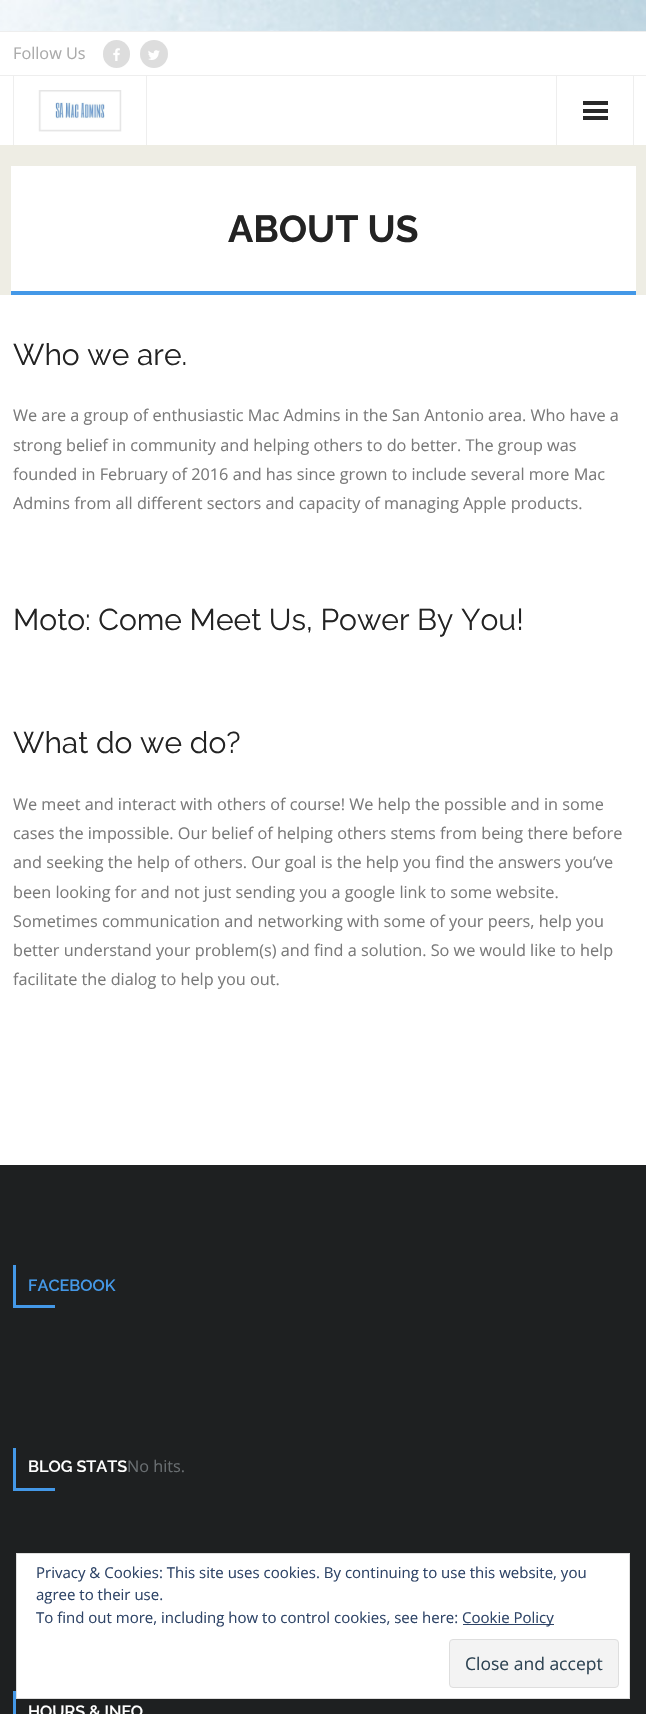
#include "include/core/SkBlurTypes.h"
#include "include/core/SkCanvas.h"
#include "include/core/SkData.h"
#include "include/core/SkFont.h"
#include "include/core/SkFontMgr.h"
#include "include/core/SkImage.h"
#include "include/core/SkMaskFilter.h"
#include "include/core/SkPaint.h"
#include "include/core/SkPathBuilder.h"
#include "include/core/SkTextBlob.h"
#include "include/effects/SkDashPathEffect.h"
#include "include/effects/SkGradientShader.h"
#include "include/utils/SkParsePath.h"

extern sk_sp<SkFontMgr> fontMgr;

void draw(SkCanvas* canvas) {
  SkPaint p;
  p.setAntiAlias(true);
  canvas->clear(SK_ColorWHITE);
  canvas->drawImageRect(SkImages::DeferredFromEncodedData(SkData::MakeFromFileName("images/1.png")), SkRect::MakeLTRB(0, 0, 646, 31), SkSamplingOptions());
  p.setColor(SkColorSetRGB(238, 238, 238));
  canvas->drawRect(SkRect::MakeLTRB(0, 31, 646, 32), p);
  canvas->drawRect(SkRect::MakeLTRB(0, 75, 646, 76), p);
  p.setColor(SkColorSetRGB(221, 221, 221));
  canvas->drawRoundRect(SkRect::MakeLTRB(103, 40, 130, 68), 13.5f, 13.5f, p);
  canvas->drawImageRect(SkImages::DeferredFromEncodedData(SkData::MakeFromFileName("images/2.png")), SkRect::MakeLTRB(113, 48, 120, 61), SkSamplingOptions());
  canvas->drawCircle(154, 54, 14, p);
  canvas->drawImageRect(SkImages::DeferredFromEncodedData(SkData::MakeFromFileName("images/3.png")), SkRect::MakeLTRB(148, 50, 160, 60), SkSamplingOptions());
  p.setColor(SkColorSetRGB(238, 238, 238));
  canvas->drawRect(SkRect::MakeLTRB(146, 76, 147, 145), p);
  canvas->drawRect(SkRect::MakeLTRB(13, 76, 14, 145), p);
  canvas->drawImageRect(SkImages::DeferredFromEncodedData(SkData::MakeFromFileName("images/4.png")), SkRect::MakeLTRB(38, 90, 122, 132), SkSamplingOptions());
  canvas->drawRect(SkRect::MakeLTRB(633, 76, 634, 145), p);
  canvas->drawRect(SkRect::MakeLTRB(556, 76, 557, 145), p);
  p.setColor(SkColorSetRGB(41, 41, 41));
  canvas->drawRect(SkRect::MakeLTRB(583, 101, 608, 105), p);
  canvas->drawRect(SkRect::MakeLTRB(583, 109, 608, 113), p);
  canvas->drawRect(SkRect::MakeLTRB(583, 116, 608, 120), p);
  p.setColor(SkColorSetRGB(238, 237, 228));
  canvas->drawRect(SkRect::MakeLTRB(0, 145, 646, 295), p);
  p.setColor(SK_ColorWHITE);
  canvas->drawRect(SkRect::MakeLTRB(11, 166, 636, 291), p);
  p.setColor(SkColorSetRGB(68, 152, 231));
  canvas->drawRect(SkRect::MakeLTRB(11, 291, 636, 295), p);
  p.setColor(SkColorSetRGB(30, 32, 33));
  canvas->drawRect(SkRect::MakeLTRB(0, 1165, 646, 1714), p);
  p.setColor(SkColorSetRGB(68, 152, 231));
  canvas->drawRect(SkRect::MakeLTRB(13, 1305, 55, 1308), p);
  canvas->drawRect(SkRect::MakeLTRB(13, 1265, 16, 1308), p);
  canvas->drawRect(SkRect::MakeLTRB(13, 1488, 55, 1491), p);
  canvas->drawRect(SkRect::MakeLTRB(13, 1448, 16, 1490), p);
  canvas->drawRect(SkRect::MakeLTRB(13, 1691, 16, 1714), p);
  p.setColor(SK_ColorWHITE);
  canvas->drawRect(SkRect::MakeLTRB(16.5f, 1553.5f, 629.5f, 1698.5f), p);
  p.setStyle(SkPaint::kStroke_Style);
  p.setStrokeWidth(1);
  p.setColor(SkColorSetRGB(222, 222, 222));
  canvas->drawRect(SkRect::MakeLTRB(16.5f, 1553.5f, 629.5f, 1698.5f), p);
  p.setStyle(SkPaint::kFill_Style);
  p.setColor(SkColorSetRGB(46, 68, 103));
  canvas->drawRect(SkRect::MakeLTRB(463, 1624, 554, 1625), p);
  p.setColor(SkColorSetRGB(243, 243, 243));
  canvas->drawRoundRect(SkRect::MakeLTRB(449.5f, 1639.5f, 618.5f, 1687.5f), 3.5f, 3.5f, p);
  p.setStyle(SkPaint::kStroke_Style);
  p.setColor(SkColorSetRGB(222, 222, 222));
  canvas->drawRoundRect(SkRect::MakeLTRB(449.5f, 1639.5f, 618.5f, 1687.5f), 3.5f, 3.5f, p);
  SkFont font1(fontMgr->matchFamilyStyle("Open Sans", SkFontStyle::Normal()), 16.25f);
  font1.setSubpixel(true);
  p.setStyle(SkPaint::kFill_Style);
  p.setColor(SkColorSetRGB(170, 170, 170));
  canvas->drawString("Follow Us", 13, 59, font1, p);
  SkFont font2(fontMgr->matchFamilyStyle("Raleway", SkFontStyle::Bold()), 37.5f);
  font2.setSubpixel(true);
  p.setColor(SkColorSetRGB(35, 35, 35));
  canvas->drawString("ABOUT US", 228, 242, font2, p);
  SkFont font3(fontMgr->matchFamilyStyle("Raleway", SkFontStyle::Normal()), 30);
  font3.setSubpixel(true);
  canvas->drawString("Who we are.", 13, 365, font3, p);
  p.setColor(SkColorSetRGB(122, 122, 122));
  canvas->drawString("We are a group of enthusiastic Mac Admins in the San Antonio area. Who have a", 13, 421, font1, p);
  canvas->drawString("strong belief in community and helping others to do better. The group was", 13, 451, font1, p);
  canvas->drawString("founded in February of 2016 and has since grown to include several more Mac", 13, 480, font1, p);
  canvas->drawString("Admins from all different sectors and capacity of managing Apple products.", 13, 509, font1, p);
  p.setColor(SkColorSetRGB(35, 35, 35));
  canvas->drawString("Moto: Come Meet Us, Power By You!", 13, 630, font3, p);
  canvas->drawString("What do we do?", 13, 753, font3, p);
  p.setColor(SkColorSetRGB(122, 122, 122));
  canvas->drawString("We meet and interact with others of course! We help the possible and in some", 13, 810, font1, p);
  canvas->drawString("cases the impossible. Our belief of helping others stems from being there before", 13, 839, font1, p);
  canvas->drawString("and seeking the help of others. Our goal is the help you find the answers you’ve", 13, 868, font1, p);
  canvas->drawString("been looking for and not just sending you a google link to some website.", 13, 898, font1, p);
  canvas->drawString("Sometimes communication and networking with some of your peers, help you", 13, 927, font1, p);
  canvas->drawString("better understand your problem(s) and find a solution. So we would like to help", 13, 956, font1, p);
  canvas->drawString("facilitate the dialog to help you out.", 13, 985, font1, p);
  SkFont font4(fontMgr->matchFamilyStyle("Raleway", SkFontStyle(600, SkFontStyle::kNormal_Width, SkFontStyle::kUpright_Slant)), 16.25f);
  font4.setSubpixel(true);
  p.setColor(SkColorSetRGB(68, 152, 231));
  canvas->drawString("FACEBOOK", 28, 1291, font4, p);
  p.setColor(SK_ColorWHITE);
  canvas->drawString("BLOG STATS", 28, 1472, font4, p);
  p.setColor(SkColorSetRGB(105, 110, 113));
  canvas->drawString("No hits.", 127, 1472, font1, p);
  p.setColor(SK_ColorWHITE);
  canvas->drawString("HOURS & INFO", 28, 1717, font4, p);
  SkFont font5(fontMgr->matchFamilyStyle("Open Sans", SkFontStyle::Normal()), 15);
  font5.setSubpixel(true);
  p.setColor(SkColorSetRGB(46, 68, 103));
  canvas->drawString("Privacy & Cookies: This site uses cookies. By continuing to use this website, you", 36, 1578, font5, p);
  canvas->drawString("agree to their use.", 36, 1600, font5, p);
  canvas->drawString("To find out more, including how to control cookies, see here:", 36, 1623, font5, p);
  canvas->drawString("Cookie Policy", 462, 1623, font5, p);
  SkFont font6(fontMgr->matchFamilyStyle("Open Sans", SkFontStyle::Normal()), 17.5f);
  font6.setSubpixel(true);
  p.setColor(SkColorSetRGB(46, 68, 83));
  canvas->drawString("Close and accept", 465, 1670, font6, p);
}
